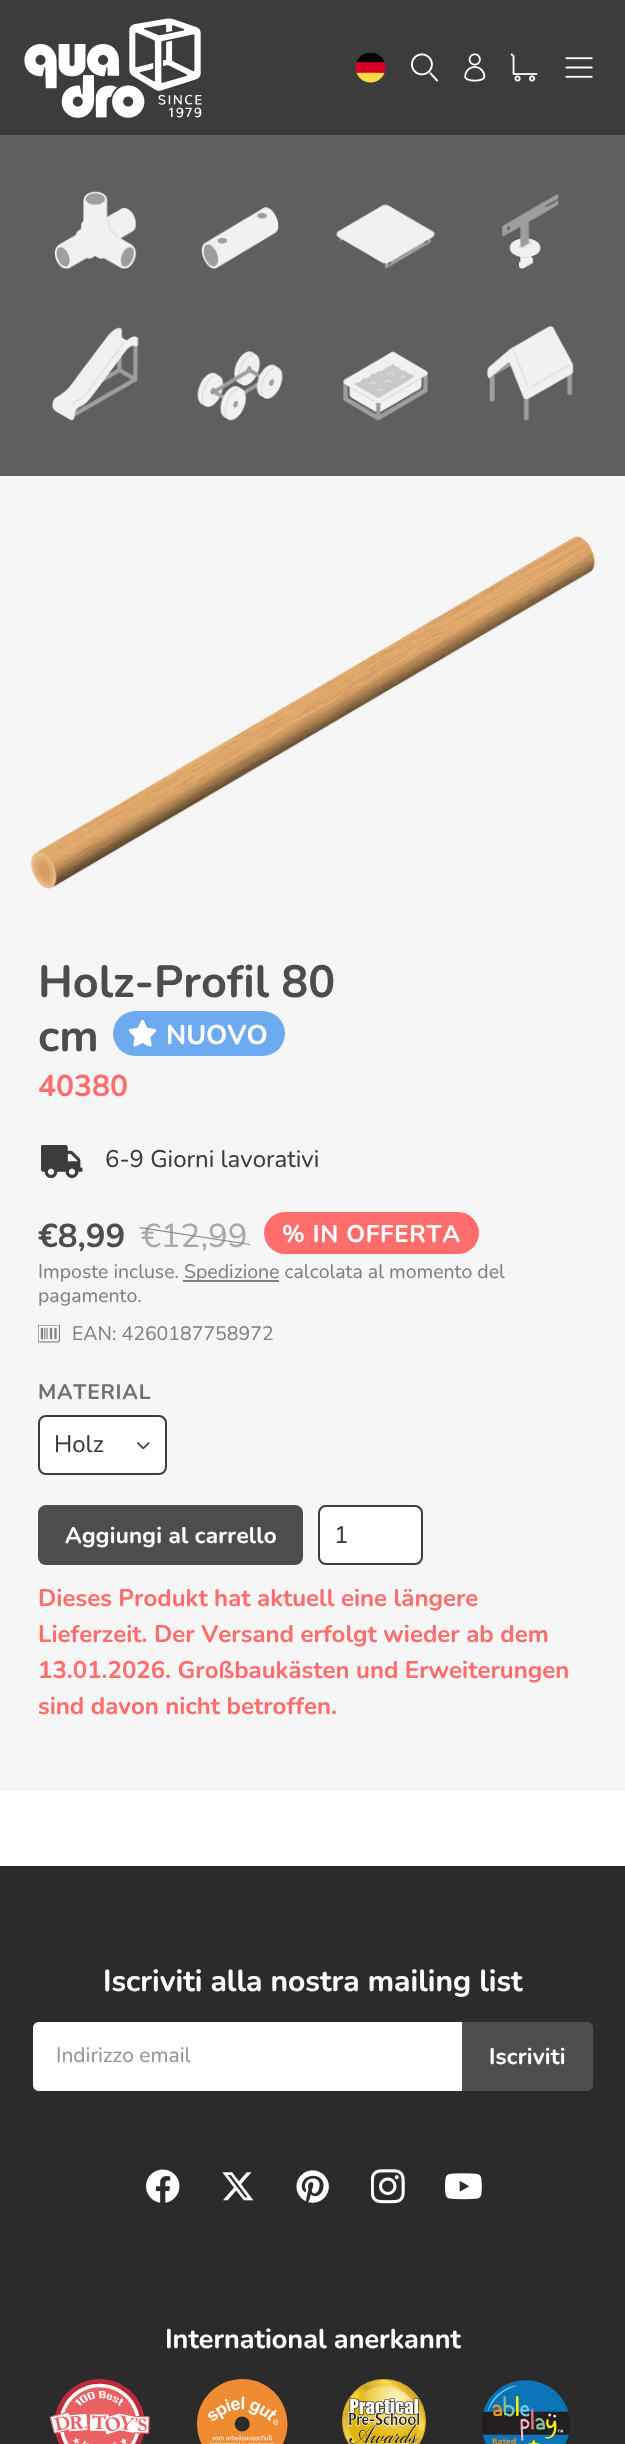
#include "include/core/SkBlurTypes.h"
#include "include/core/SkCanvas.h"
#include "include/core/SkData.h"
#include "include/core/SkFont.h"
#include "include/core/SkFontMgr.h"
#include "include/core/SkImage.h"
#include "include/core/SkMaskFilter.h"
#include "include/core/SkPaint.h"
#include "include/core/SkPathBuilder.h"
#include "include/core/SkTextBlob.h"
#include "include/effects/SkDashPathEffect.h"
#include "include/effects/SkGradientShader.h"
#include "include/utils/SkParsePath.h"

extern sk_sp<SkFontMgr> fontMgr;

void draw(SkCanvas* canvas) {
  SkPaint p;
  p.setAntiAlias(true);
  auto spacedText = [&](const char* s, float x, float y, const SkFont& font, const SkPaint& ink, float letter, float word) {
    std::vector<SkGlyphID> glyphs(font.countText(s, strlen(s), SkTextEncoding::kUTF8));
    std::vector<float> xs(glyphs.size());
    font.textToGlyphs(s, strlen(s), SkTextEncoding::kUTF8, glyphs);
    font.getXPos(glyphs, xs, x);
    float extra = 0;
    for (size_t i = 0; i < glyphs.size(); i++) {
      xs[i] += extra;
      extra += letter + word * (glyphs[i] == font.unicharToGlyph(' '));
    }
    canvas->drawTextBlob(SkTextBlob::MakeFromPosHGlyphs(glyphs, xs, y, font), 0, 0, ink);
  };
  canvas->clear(SK_ColorWHITE);
  p.setColor(SkColorSetRGB(60, 60, 60));
  canvas->drawRect(SkRect::MakeLTRB(0, 0, 625, 135), p);
  canvas->drawImageRect(SkImages::DeferredFromEncodedData(SkData::MakeFromFileName("images/1.png")), SkRect::MakeLTRB(24, 18, 202, 118), SkSamplingOptions());
  canvas->drawImageRect(SkImages::DeferredFromEncodedData(SkData::MakeFromFileName("images/2.png")), SkRect::MakeLTRB(356, 53, 386, 83), SkSamplingOptions());
  canvas->drawImageRect(SkImages::DeferredFromEncodedData(SkData::MakeFromFileName("images/3.png")), SkRect::MakeLTRB(410, 53, 439, 82), SkSamplingOptions());
  canvas->drawImageRect(SkImages::DeferredFromEncodedData(SkData::MakeFromFileName("images/4.png")), SkRect::MakeLTRB(464, 53, 486, 82), SkSamplingOptions());
  canvas->drawImageRect(SkImages::DeferredFromEncodedData(SkData::MakeFromFileName("images/5.png")), SkRect::MakeLTRB(510, 53, 538, 82), SkSamplingOptions());
  canvas->drawImageRect(SkImages::DeferredFromEncodedData(SkData::MakeFromFileName("images/6.png")), SkRect::MakeLTRB(565, 57, 593, 78), SkSamplingOptions());
  p.setColor(SkColorSetRGB(95, 95, 95));
  canvas->drawRect(SkRect::MakeLTRB(0, 135, 625, 476), p);
  canvas->drawImageRect(SkImages::DeferredFromEncodedData(SkData::MakeFromFileName("images/7.png")), SkRect::MakeLTRB(54, 191, 137, 269), SkSamplingOptions());
  canvas->drawImageRect(SkImages::DeferredFromEncodedData(SkData::MakeFromFileName("images/8.png")), SkRect::MakeLTRB(201, 207, 279, 269), SkSamplingOptions());
  canvas->drawImageRect(SkImages::DeferredFromEncodedData(SkData::MakeFromFileName("images/9.png")), SkRect::MakeLTRB(336, 204, 435, 269), SkSamplingOptions());
  canvas->drawImageRect(SkImages::DeferredFromEncodedData(SkData::MakeFromFileName("images/10.png")), SkRect::MakeLTRB(502, 194, 559, 269), SkSamplingOptions());
  canvas->drawImageRect(SkImages::DeferredFromEncodedData(SkData::MakeFromFileName("images/11.png")), SkRect::MakeLTRB(52, 327, 139, 421), SkSamplingOptions());
  canvas->drawImageRect(SkImages::DeferredFromEncodedData(SkData::MakeFromFileName("images/12.png")), SkRect::MakeLTRB(197, 351, 283, 421), SkSamplingOptions());
  canvas->drawImageRect(SkImages::DeferredFromEncodedData(SkData::MakeFromFileName("images/13.png")), SkRect::MakeLTRB(343, 351, 429, 421), SkSamplingOptions());
  canvas->drawImageRect(SkImages::DeferredFromEncodedData(SkData::MakeFromFileName("images/14.png")), SkRect::MakeLTRB(487, 325, 574, 421), SkSamplingOptions());
  p.setColor(SkColorSetRGB(246, 246, 246));
  canvas->drawRect(SkRect::MakeLTRB(0, 476, 625, 1791), p);
  canvas->drawImageRect(SkImages::DeferredFromEncodedData(SkData::MakeFromFileName("images/15.png")), SkRect::MakeLTRB(30, 535, 596, 890), SkSamplingOptions());
  p.setColor(SkColorSetRGB(110, 170, 240));
  canvas->drawRoundRect(SkRect::MakeLTRB(113, 1011, 285, 1056), 22.5f, 22.5f, p);
  canvas->drawImageRect(SkImages::DeferredFromEncodedData(SkData::MakeFromFileName("images/16.png")), SkRect::MakeLTRB(128, 1020, 157, 1047), SkSamplingOptions());
  canvas->drawImageRect(SkImages::DeferredFromEncodedData(SkData::MakeFromFileName("images/17.png")), SkRect::MakeLTRB(41, 1145, 83, 1178), SkSamplingOptions());
  p.setColor(SkColorSetRGB(255, 109, 109));
  canvas->drawRoundRect(SkRect::MakeLTRB(264, 1212, 479, 1254), 21, 21, p);
  p.setColor(SkColorSetRGB(128, 128, 128));
  canvas->drawRect(SkRect::MakeLTRB(183, 1280, 279, 1282), p);
  canvas->drawImageRect(SkImages::DeferredFromEncodedData(SkData::MakeFromFileName("images/18.png")), SkRect::MakeLTRB(38, 1325, 60, 1343), SkSamplingOptions());
  p.setColor(SK_ColorWHITE);
  canvas->drawRoundRect(SkRect::MakeLTRB(38, 1415, 167, 1475), 8, 8, p);
  canvas->drawImageRect(SkImages::DeferredFromEncodedData(SkData::MakeFromFileName("images/19.png")), SkRect::MakeLTRB(137, 1442, 150, 1450), SkSamplingOptions());
  p.setStyle(SkPaint::kStroke_Style);
  p.setStrokeWidth(2);
  p.setColor(SkColorSetRGB(60, 60, 60));
  canvas->drawRoundRect(SkRect::MakeLTRB(39, 1416, 166, 1474), 7, 7, p);
  p.setStyle(SkPaint::kFill_Style);
  p.setColor(SkColorSetRGB(77, 77, 77));
  canvas->drawRoundRect(SkRect::MakeLTRB(38, 1505, 303, 1565), 8, 8, p);
  p.setColor(SK_ColorWHITE);
  canvas->drawRoundRect(SkRect::MakeLTRB(319, 1506, 422, 1564), 7, 7, p);
  p.setStyle(SkPaint::kStroke_Style);
  p.setColor(SkColorSetRGB(60, 60, 60));
  canvas->drawRoundRect(SkRect::MakeLTRB(319, 1506, 422, 1564), 7, 7, p);
  p.setStyle(SkPaint::kFill_Style);
  p.setColor(SkColorSetRGB(43, 43, 43));
  canvas->drawRect(SkRect::MakeLTRB(0, 1866, 625, 2444), p);
  p.setColor(SK_ColorWHITE);
  canvas->drawPath(SkPathBuilder().moveTo(39, 2022).lineTo(462, 2022).lineTo(462, 2091).lineTo(39, 2091).cubicTo(35.5f, 2091, 33, 2088.5f, 33, 2085).lineTo(33, 2028).cubicTo(33, 2024.5f, 35.5f, 2022, 39, 2022).close().detach(), p);
  p.setColor(SkColorSetRGB(78, 78, 78));
  canvas->drawPath(SkPathBuilder().moveTo(462, 2022).lineTo(587, 2022).cubicTo(590.5f, 2022, 593, 2024.5f, 593, 2028).lineTo(593, 2085).cubicTo(593, 2088.5f, 590.5f, 2091, 587, 2091).lineTo(462, 2091).close().detach(), p);
  canvas->drawImageRect(SkImages::DeferredFromEncodedData(SkData::MakeFromFileName("images/20.png")), SkRect::MakeLTRB(146, 2169, 180, 2203), SkSamplingOptions());
  canvas->drawImageRect(SkImages::DeferredFromEncodedData(SkData::MakeFromFileName("images/21.png")), SkRect::MakeLTRB(222, 2172, 254, 2201), SkSamplingOptions());
  canvas->drawImageRect(SkImages::DeferredFromEncodedData(SkData::MakeFromFileName("images/22.png")), SkRect::MakeLTRB(296, 2170, 329, 2203), SkSamplingOptions());
  canvas->drawImageRect(SkImages::DeferredFromEncodedData(SkData::MakeFromFileName("images/23.png")), SkRect::MakeLTRB(371, 2169, 405, 2204), SkSamplingOptions());
  canvas->drawImageRect(SkImages::DeferredFromEncodedData(SkData::MakeFromFileName("images/24.png")), SkRect::MakeLTRB(445, 2173, 482, 2200), SkSamplingOptions());
  canvas->drawImageRect(SkImages::DeferredFromEncodedData(SkData::MakeFromFileName("images/25.png")), SkRect::MakeLTRB(49, 2379, 150, 2444), SkSamplingOptions());
  canvas->drawImageRect(SkImages::DeferredFromEncodedData(SkData::MakeFromFileName("images/26.png")), SkRect::MakeLTRB(197, 2379, 288, 2444), SkSamplingOptions());
  canvas->drawImageRect(SkImages::DeferredFromEncodedData(SkData::MakeFromFileName("images/27.png")), SkRect::MakeLTRB(342, 2379, 426, 2444), SkSamplingOptions());
  canvas->drawImageRect(SkImages::DeferredFromEncodedData(SkData::MakeFromFileName("images/28.png")), SkRect::MakeLTRB(481, 2380, 570, 2444), SkSamplingOptions());
  SkFont font1(fontMgr->matchFamilyStyle("Nunito", SkFontStyle(200, SkFontStyle::kNormal_Width, SkFontStyle::kUpright_Slant)), 45);
  font1.setSubpixel(true);
  p.setColor(SkColorSetRGB(77, 77, 77));
  canvas->drawString("Holz-Profil 80", 38, 997, font1, p);
  canvas->drawString("cm", 38, 1051, font1, p);
  SkFont font2(fontMgr->matchFamilyStyle("Nunito", SkFontStyle(200, SkFontStyle::kNormal_Width, SkFontStyle::kUpright_Slant)), 27);
  font2.setSubpixel(true);
  p.setColor(SK_ColorWHITE);
  canvas->drawString("NUOVO", 166, 1044, font2, p);
  SkFont font3(fontMgr->matchFamilyStyle("Nunito", SkFontStyle(200, SkFontStyle::kNormal_Width, SkFontStyle::kUpright_Slant)), 30);
  font3.setSubpixel(true);
  p.setColor(SkColorSetRGB(255, 109, 109));
  canvas->drawString("40380", 38, 1096, font3, p);
  SkFont font4(fontMgr->matchFamilyStyle("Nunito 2", SkFontStyle(200, SkFontStyle::kNormal_Width, SkFontStyle::kUpright_Slant)), 24);
  font4.setSubpixel(true);
  p.setColor(SkColorSetRGB(60, 60, 60));
  canvas->drawString("6-9 Giorni lavorativi", 105, 1167, font4, p);
  SkFont font5(fontMgr->matchFamilyStyle("Nunito", SkFontStyle(200, SkFontStyle::kNormal_Width, SkFontStyle::kUpright_Slant)), 33);
  font5.setSubpixel(true);
  p.setColor(SkColorSetRGB(77, 77, 77));
  canvas->drawString("€8,99", 38, 1247, font5, p);
  SkFont font6(fontMgr->matchFamilyStyle("Nunito 2", SkFontStyle(200, SkFontStyle::kNormal_Width, SkFontStyle::kUpright_Slant)), 33);
  font6.setSubpixel(true);
  p.setColor(SkColorSetRGB(169, 169, 169));
  canvas->drawString("€12,99", 141, 1247, font6, p);
  p.setColor(SkColorSetRGB(134, 134, 134));
  canvas->drawPath(SkPathBuilder().moveTo(140, 1227).lineTo(250, 1244).lineTo(250, 1245).lineTo(139, 1228).close().detach(), p);
  SkFont font7(fontMgr->matchFamilyStyle("Nunito", SkFontStyle(200, SkFontStyle::kNormal_Width, SkFontStyle::kUpright_Slant)), 24);
  font7.setSubpixel(true);
  p.setColor(SK_ColorWHITE);
  spacedText("% IN OFFERTA", 282, 1242, font7, p, 0.75f, 0);
  SkFont font8(fontMgr->matchFamilyStyle("Nunito 2", SkFontStyle(200, SkFontStyle::kNormal_Width, SkFontStyle::kUpright_Slant)), 19.5f);
  font8.setSubpixel(true);
  p.setColor(SkColorSetRGB(128, 128, 128));
  canvas->drawString("Imposte incluse.", 38, 1278, font8, p);
  canvas->drawString("Spedizione calcolata al momento del", 184, 1278, font8, p);
  canvas->drawString("pagamento.", 38, 1302, font8, p);
  canvas->drawString("EAN: 4260187758972", 72, 1340, font8, p);
  SkFont font9(fontMgr->matchFamilyStyle("Nunito", SkFontStyle(200, SkFontStyle::kNormal_Width, SkFontStyle::kUpright_Slant)), 21);
  font9.setSubpixel(true);
  p.setColor(SkColorSetRGB(112, 112, 112));
  spacedText("MATERIAL", 38, 1399, font9, p, 0.75f, 0);
  p.setColor(SkColorSetRGB(60, 60, 60));
  canvas->drawString("Holz", 54, 1452, font4, p);
  SkFont font10(fontMgr->matchFamilyStyle("Nunito", SkFontStyle(200, SkFontStyle::kNormal_Width, SkFontStyle::kUpright_Slant)), 22.5f);
  font10.setSubpixel(true);
  p.setColor(SK_ColorWHITE);
  spacedText("Aggiungi al carrello", 65, 1543, font10, p, 0.25f, 0);
  p.setColor(SkColorSetRGB(60, 60, 60));
  canvas->drawString("1", 334, 1543, font4, p);
  p.setColor(SkColorSetRGB(255, 109, 109));
  canvas->drawString("Dieses Produkt hat aktuell eine längere", 38, 1606, font7, p);
  canvas->drawString("Lieferzeit. Der Versand erfolgt wieder ab dem", 38, 1642, font7, p);
  canvas->drawString("13.01.2026. Großbaukästen und Erweiterungen", 38, 1678, font7, p);
  canvas->drawString("sind davon nicht betroffen.", 38, 1714, font7, p);
  p.setColor(SK_ColorWHITE);
  canvas->drawString("Iscriviti alla nostra mailing list", 103, 1991, font3, p);
  SkFont font11(fontMgr->matchFamilyStyle("Nunito 2", SkFontStyle(200, SkFontStyle::kNormal_Width, SkFontStyle::kUpright_Slant)), 21);
  font11.setSubpixel(true);
  p.setColor(SkColorSetRGB(148, 148, 148));
  canvas->drawString("Indirizzo email", 56, 2062, font11, p);
  p.setColor(SK_ColorWHITE);
  spacedText("Iscriviti", 489, 2064, font10, p, 0.25f, 0);
  canvas->drawString("International anerkannt", 165, 2348, font2, p);
}
